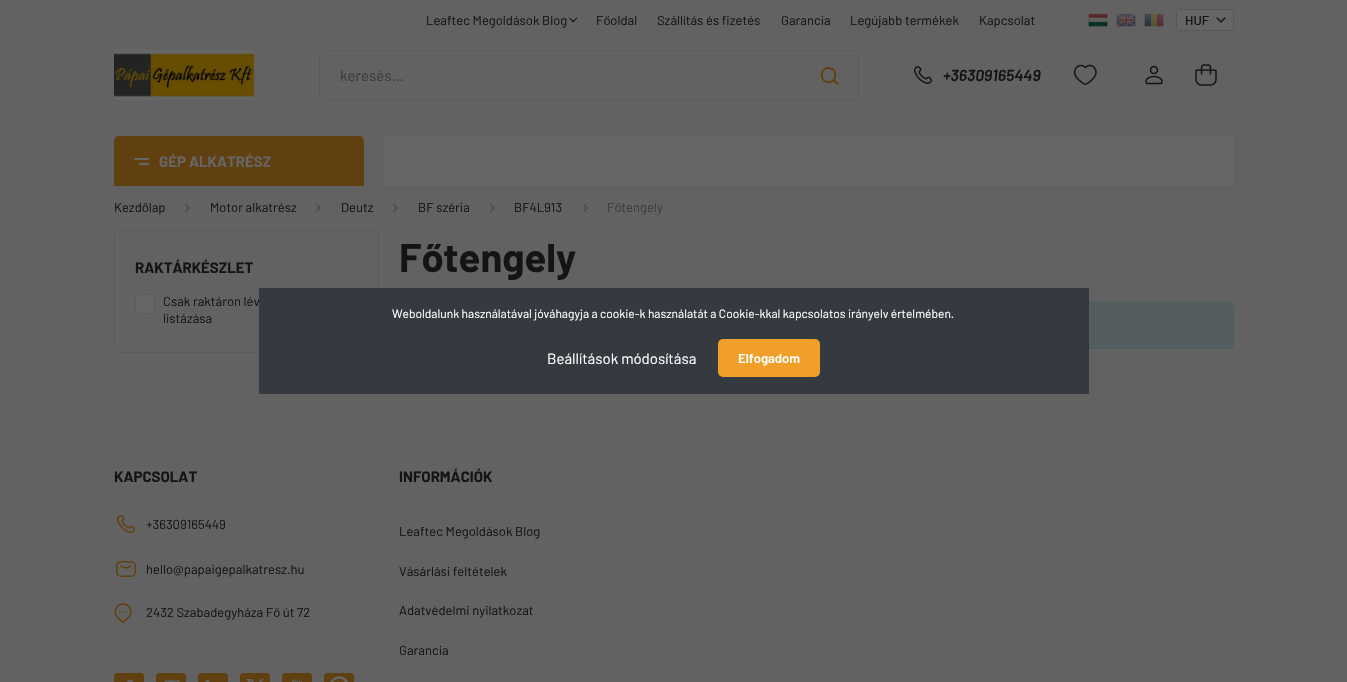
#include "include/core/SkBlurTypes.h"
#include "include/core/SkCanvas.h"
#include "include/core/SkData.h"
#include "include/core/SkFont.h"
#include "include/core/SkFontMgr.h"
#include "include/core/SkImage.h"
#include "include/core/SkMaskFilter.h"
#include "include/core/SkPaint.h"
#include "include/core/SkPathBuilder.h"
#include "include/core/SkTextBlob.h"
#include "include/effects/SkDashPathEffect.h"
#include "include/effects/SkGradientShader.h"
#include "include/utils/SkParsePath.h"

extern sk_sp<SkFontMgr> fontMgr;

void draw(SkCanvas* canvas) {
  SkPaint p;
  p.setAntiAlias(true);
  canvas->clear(SkColorSetRGB(98, 98, 98));
  p.setColor(SkColorSetRGB(19, 20, 20));
  canvas->drawPath(SkPathBuilder().moveTo(576.5f, 17.5f).lineTo(577.5f, 18).lineTo(573, 22.5f).lineTo(572.5f, 21.5f).close().detach(), p);
  canvas->drawPath(SkPathBuilder().moveTo(569.5f, 17.5f).lineTo(574, 21.5f).lineTo(573, 22.5f).lineTo(569, 18).close().detach(), p);
  canvas->drawImageRect(SkImages::DeferredFromEncodedData(SkData::MakeFromFileName("images/1.png")), SkRect::MakeLTRB(1088, 13, 1108, 27), SkSamplingOptions());
  canvas->drawImageRect(SkImages::DeferredFromEncodedData(SkData::MakeFromFileName("images/2.png")), SkRect::MakeLTRB(1116, 13, 1136, 27), SkSamplingOptions());
  canvas->drawImageRect(SkImages::DeferredFromEncodedData(SkData::MakeFromFileName("images/3.png")), SkRect::MakeLTRB(1144, 13, 1164, 27), SkSamplingOptions());
  p.setColor(SkColorSetRGB(102, 102, 102));
  canvas->drawRoundRect(SkRect::MakeLTRB(1176, 9, 1234, 31), 3, 3, p);
  canvas->drawImageRect(SkImages::DeferredFromEncodedData(SkData::MakeFromFileName("images/4.png")), SkRect::MakeLTRB(1216, 17, 1226, 23), SkSamplingOptions());
  p.setStyle(SkPaint::kStroke_Style);
  p.setStrokeWidth(1);
  p.setColor(SkColorSetRGB(88, 88, 90));
  canvas->drawRoundRect(SkRect::MakeLTRB(1176.5f, 9.5f, 1233.5f, 30.5f), 2.5f, 2.5f, p);
  canvas->drawImageRect(SkImages::DeferredFromEncodedData(SkData::MakeFromFileName("images/5.png")), SkRect::MakeLTRB(114, 50, 254, 100), SkSamplingOptions());
  p.setColor(SkColorSetRGB(91, 91, 94));
  canvas->drawRoundRect(SkRect::MakeLTRB(319.5f, 50.5f, 858.5f, 99.5f), 4.5f, 4.5f, p);
  p.setStrokeWidth(2);
  p.setStrokeCap(SkPaint::kRound_Cap);
  p.setStrokeJoin(SkPaint::kRound_Join);
  p.setColor(SkColorSetRGB(96, 64, 16));
  canvas->drawPath(SkPathBuilder().moveTo(837.5f, 84).lineTo(833.5f, 80).moveTo(828.5f, 82).cubicTo(819.5f, 82, 819.5f, 68, 828.5f, 68).cubicTo(837.5f, 68, 837.5f, 82, 828.5f, 82).close().detach(), p);
  canvas->drawImageRect(SkImages::DeferredFromEncodedData(SkData::MakeFromFileName("images/6.png")), SkRect::MakeLTRB(914, 66, 932, 84), SkSamplingOptions());
  canvas->drawImageRect(SkImages::DeferredFromEncodedData(SkData::MakeFromFileName("images/7.png")), SkRect::MakeLTRB(1073, 64, 1097, 86), SkSamplingOptions());
  canvas->drawImageRect(SkImages::DeferredFromEncodedData(SkData::MakeFromFileName("images/8.png")), SkRect::MakeLTRB(1145, 65, 1163, 85), SkSamplingOptions());
  canvas->drawImageRect(SkImages::DeferredFromEncodedData(SkData::MakeFromFileName("images/9.png")), SkRect::MakeLTRB(1195, 64, 1217, 86), SkSamplingOptions());
  p.setStyle(SkPaint::kFill_Style);
  canvas->drawPath(SkPathBuilder().moveTo(119, 136).lineTo(359, 136).cubicTo(362, 136, 364, 138, 364, 141).lineTo(364, 186).lineTo(114, 186).lineTo(114, 141).cubicTo(114, 138, 116, 136, 119, 136).close().detach(), p);
  p.setColor(SkColorSetRGB(102, 102, 102));
  canvas->drawRoundRect(SkRect::MakeLTRB(134, 158, 149, 160), 1, 1, p);
  canvas->drawRoundRect(SkRect::MakeLTRB(139, 163, 149, 165), 1, 1, p);
  canvas->drawRect(SkRect::MakeLTRB(384, 136, 1234, 186), p);
  canvas->drawImageRect(SkImages::DeferredFromEncodedData(SkData::MakeFromFileName("images/10.png")), SkRect::MakeLTRB(185, 204, 190, 212), SkSamplingOptions());
  canvas->drawImageRect(SkImages::DeferredFromEncodedData(SkData::MakeFromFileName("images/10.png")), SkRect::MakeLTRB(316, 204, 321, 212), SkSamplingOptions());
  canvas->drawImageRect(SkImages::DeferredFromEncodedData(SkData::MakeFromFileName("images/10.png")), SkRect::MakeLTRB(393, 204, 398, 212), SkSamplingOptions());
  canvas->drawImageRect(SkImages::DeferredFromEncodedData(SkData::MakeFromFileName("images/10.png")), SkRect::MakeLTRB(490, 204, 495, 212), SkSamplingOptions());
  canvas->drawImageRect(SkImages::DeferredFromEncodedData(SkData::MakeFromFileName("images/10.png")), SkRect::MakeLTRB(583, 204, 588, 212), SkSamplingOptions());
  p.setStyle(SkPaint::kStroke_Style);
  p.setStrokeWidth(1);
  p.setStrokeCap(SkPaint::kButt_Cap);
  p.setStrokeJoin(SkPaint::kMiter_Join);
  p.setColor(SkColorSetRGB(91, 91, 94));
  canvas->drawRoundRect(SkRect::MakeLTRB(114.5f, 230.5f, 378.5f, 352.5f), 4.5f, 4.5f, p);
  p.setStyle(SkPaint::kFill_Style);
  p.setColor(SkColorSetRGB(102, 102, 102));
  canvas->drawRoundRect(SkRect::MakeLTRB(135.5f, 294.5f, 154.5f, 313.5f), 4.5f, 4.5f, p);
  p.setStyle(SkPaint::kStroke_Style);
  p.setColor(SkColorSetRGB(91, 91, 94));
  canvas->drawRoundRect(SkRect::MakeLTRB(135.5f, 294.5f, 154.5f, 313.5f), 4.5f, 4.5f, p);
  p.setStyle(SkPaint::kFill_Style);
  p.setColor(SkColorSetRGB(84, 94, 96));
  canvas->drawRoundRect(SkRect::MakeLTRB(399.5f, 302.5f, 1233.5f, 348.5f), 4.5f, 4.5f, p);
  p.setStyle(SkPaint::kStroke_Style);
  p.setColor(SkColorSetRGB(76, 92, 94));
  canvas->drawRoundRect(SkRect::MakeLTRB(399.5f, 302.5f, 1233.5f, 348.5f), 4.5f, 4.5f, p);
  canvas->drawImageRect(SkImages::DeferredFromEncodedData(SkData::MakeFromFileName("images/11.png")), SkRect::MakeLTRB(117, 515, 135, 533), SkSamplingOptions());
  p.setStrokeWidth(1.5f);
  p.setColor(SkColorSetRGB(96, 64, 16));
  canvas->drawRoundRect(SkRect::MakeLTRB(116.75f, 561.75f, 135.25f, 576.25f), 4.25f, 4.25f, p);
  p.setStrokeCap(SkPaint::kRound_Cap);
  p.setStrokeJoin(SkPaint::kRound_Join);
  canvas->drawPath(SkPathBuilder().moveTo(121, 566).cubicTo(126.5f, 568.5f, 125.5f, 568.5f, 131, 566).detach(), p);
  canvas->drawImageRect(SkImages::DeferredFromEncodedData(SkData::MakeFromFileName("images/12.png")), SkRect::MakeLTRB(114, 603, 132, 623), SkSamplingOptions());
  canvas->drawImageRect(SkImages::DeferredFromEncodedData(SkData::MakeFromFileName("images/13.png")), SkRect::MakeLTRB(114, 673, 144, 682), SkSamplingOptions());
  canvas->drawImageRect(SkImages::DeferredFromEncodedData(SkData::MakeFromFileName("images/14.png")), SkRect::MakeLTRB(156, 673, 186, 682), SkSamplingOptions());
  canvas->drawImageRect(SkImages::DeferredFromEncodedData(SkData::MakeFromFileName("images/15.png")), SkRect::MakeLTRB(198, 673, 228, 682), SkSamplingOptions());
  canvas->drawImageRect(SkImages::DeferredFromEncodedData(SkData::MakeFromFileName("images/16.png")), SkRect::MakeLTRB(240, 673, 270, 682), SkSamplingOptions());
  canvas->drawImageRect(SkImages::DeferredFromEncodedData(SkData::MakeFromFileName("images/17.png")), SkRect::MakeLTRB(282, 673, 312, 682), SkSamplingOptions());
  canvas->drawImageRect(SkImages::DeferredFromEncodedData(SkData::MakeFromFileName("images/18.png")), SkRect::MakeLTRB(324, 673, 354, 682), SkSamplingOptions());
  p.setStyle(SkPaint::kFill_Style);
  p.setColor(SkColorSetRGB(52, 58, 64));
  canvas->drawRect(SkRect::MakeLTRB(259, 288, 1089, 394), p);
  p.setColor(SkColorSetRGB(240, 160, 40));
  canvas->drawRoundRect(SkRect::MakeLTRB(718, 339, 820, 377), 5, 5, p);
  SkFont font1(fontMgr->matchFamilyStyle("Barlow", SkFontStyle::Normal()), 13);
  font1.setSubpixel(true);
  p.setColor(SkColorSetRGB(19, 20, 20));
  canvas->drawString("Leaftec Megoldások Blog", 426, 25, font1, p);
  canvas->drawString("Főoldal", 596, 25, font1, p);
  canvas->drawString("Szállítás és fizetés", 657, 25, font1, p);
  canvas->drawString("Garancia", 781, 25, font1, p);
  canvas->drawString("Legújabb termékek", 850, 25, font1, p);
  canvas->drawString("Kapcsolat", 979, 25, font1, p);
  SkFont font2(fontMgr->matchFamilyStyle("Barlow", SkFontStyle(500, SkFontStyle::kNormal_Width, SkFontStyle::kUpright_Slant)), 13);
  font2.setSubpixel(true);
  canvas->drawString("HUF", 1185, 25, font2, p);
  SkFont font3(fontMgr->matchFamilyStyle("Barlow", SkFontStyle::Normal()), 15);
  font3.setSubpixel(true);
  p.setColor(SkColorSetRGB(59, 59, 60));
  canvas->drawString("keresés...", 340, 81, font3, p);
  SkFont font4(fontMgr->matchFamilyStyle("Barlow", SkFontStyle(600, SkFontStyle::kNormal_Width, SkFontStyle::kItalic_Slant)), 16);
  font4.setSubpixel(true);
  p.setColor(SkColorSetRGB(19, 20, 20));
  canvas->drawString("+36309165449", 943, 81, font4, p);
  SkFont font5(fontMgr->matchFamilyStyle("Barlow", SkFontStyle::Bold()), 15);
  font5.setSubpixel(true);
  p.setColor(SkColorSetRGB(102, 102, 102));
  canvas->drawString("GÉP ALKATRÉSZ", 159, 167, font5, p);
  p.setColor(SkColorSetRGB(19, 20, 20));
  canvas->drawString("Kezdőlap", 114, 212, font1, p);
  canvas->drawString("Motor alkatrész", 210, 212, font1, p);
  canvas->drawString("Deutz", 341, 212, font1, p);
  canvas->drawString("BF széria", 418, 212, font1, p);
  canvas->drawString("BF4L913", 514, 212, font1, p);
  p.setColor(SkColorSetRGB(59, 59, 60));
  canvas->drawString("Főtengely", 607, 212, font1, p);
  p.setColor(SkColorSetRGB(19, 20, 20));
  canvas->drawString("RAKTÁRKÉSZLET", 135, 273, font5, p);
  canvas->drawString("Csak raktáron lév", 163, 306, font1, p);
  canvas->drawString("listázása", 163, 323, font1, p);
  SkFont font6(fontMgr->matchFamilyStyle("Barlow", SkFontStyle::Bold()), 40);
  font6.setSubpixel(true);
  canvas->drawString("Főtengely", 399, 272, font6, p);
  canvas->drawString("KAPCSOLAT", 114, 482, font5, p);
  canvas->drawString("+36309165449", 146, 529, font1, p);
  canvas->drawString("hello@papaigepalkatresz.hu", 146, 574, font1, p);
  canvas->drawString("2432 Szabadegyháza Fő út 72", 146, 617, font1, p);
  canvas->drawString("INFORMÁCIÓK", 399, 482, font5, p);
  canvas->drawString("Leaftec Megoldások Blog", 399, 536, font1, p);
  canvas->drawString("Vásárlási feltételek", 399, 576, font1, p);
  canvas->drawString("Adatvédelmi nyilatkozat", 399, 615, font1, p);
  canvas->drawString("Garancia", 399, 655, font1, p);
  SkFont font7(fontMgr->matchFamilyStyle("Barlow", SkFontStyle::Normal()), 12);
  font7.setSubpixel(true);
  p.setColor(SK_ColorWHITE);
  canvas->drawString("Weboldalunk használatával jóváhagyja a cookie-k használatát a Cookie-kkal kapcsolatos irányelv értelmében.", 392, 318, font7, p);
  canvas->drawString("Beállítások módosítása", 547, 364, font3, p);
  SkFont font8(fontMgr->matchFamilyStyle("Barlow", SkFontStyle(600, SkFontStyle::kNormal_Width, SkFontStyle::kUpright_Slant)), 13);
  font8.setSubpixel(true);
  canvas->drawString("Elfogadom", 738, 363, font8, p);
}
